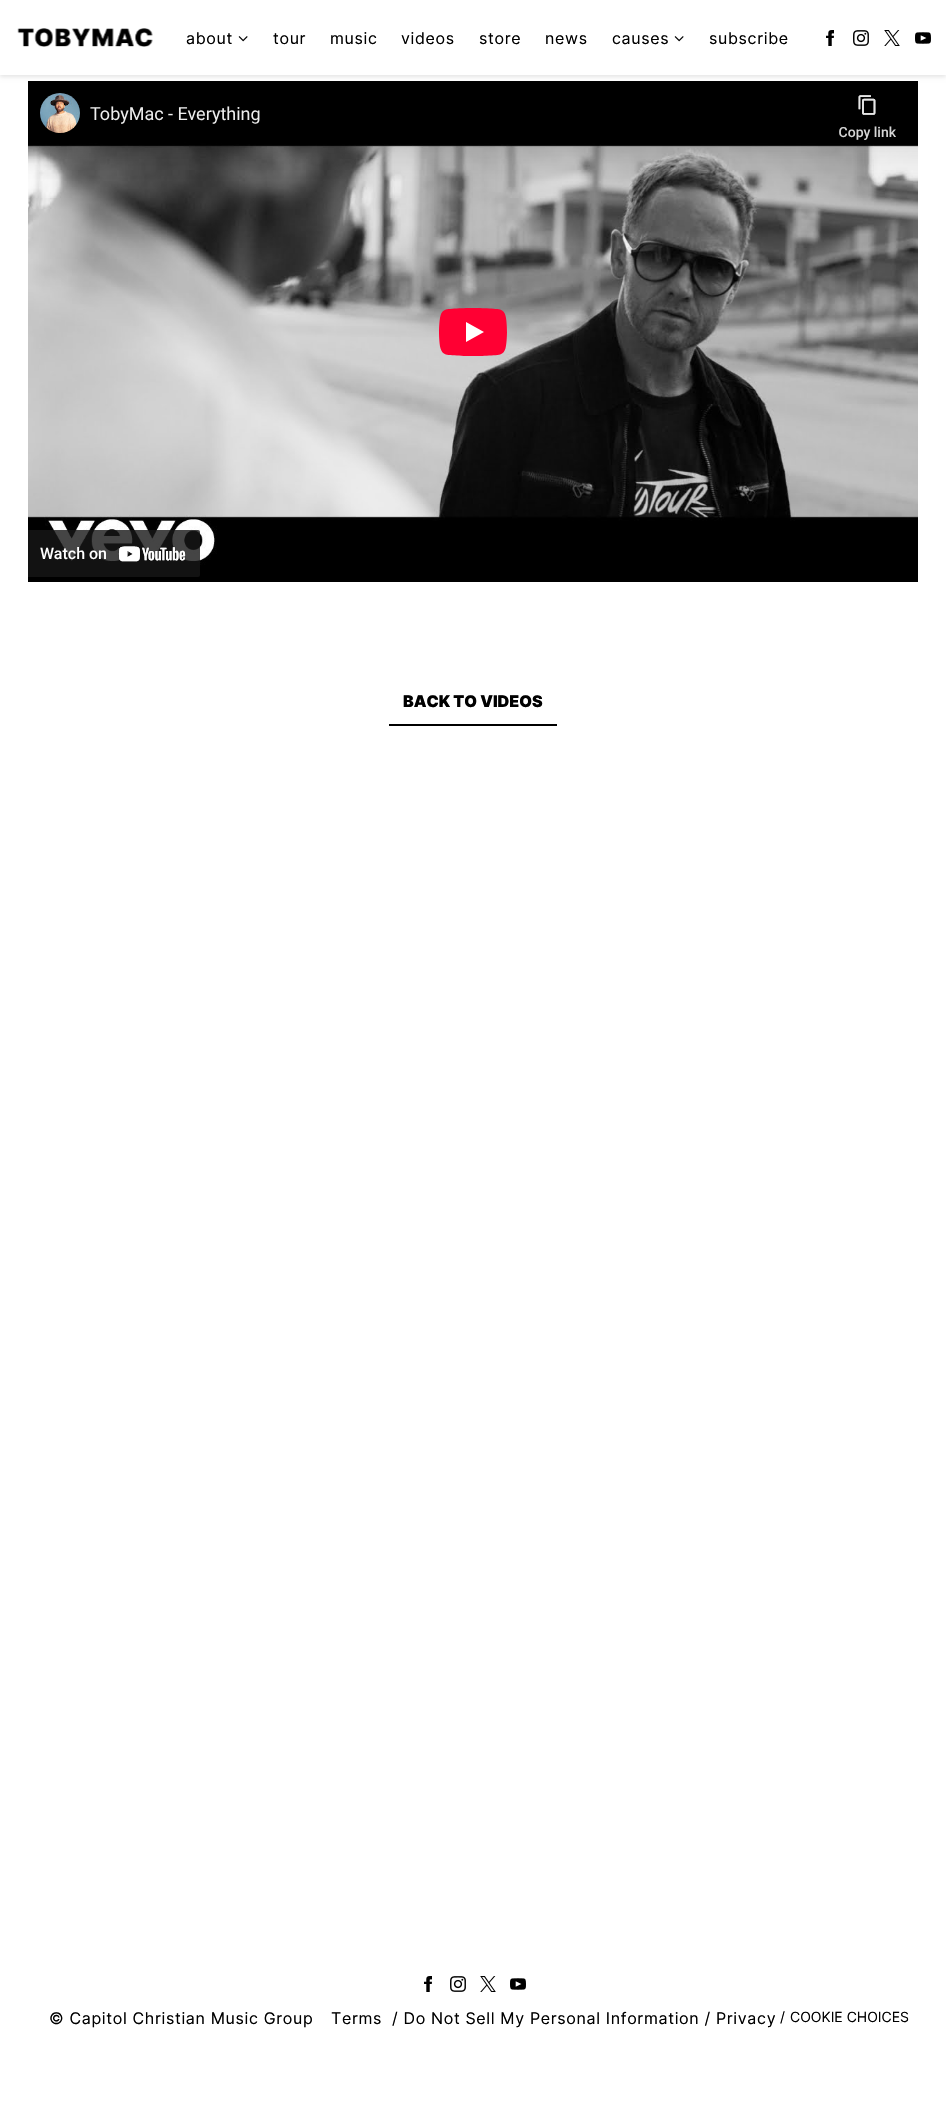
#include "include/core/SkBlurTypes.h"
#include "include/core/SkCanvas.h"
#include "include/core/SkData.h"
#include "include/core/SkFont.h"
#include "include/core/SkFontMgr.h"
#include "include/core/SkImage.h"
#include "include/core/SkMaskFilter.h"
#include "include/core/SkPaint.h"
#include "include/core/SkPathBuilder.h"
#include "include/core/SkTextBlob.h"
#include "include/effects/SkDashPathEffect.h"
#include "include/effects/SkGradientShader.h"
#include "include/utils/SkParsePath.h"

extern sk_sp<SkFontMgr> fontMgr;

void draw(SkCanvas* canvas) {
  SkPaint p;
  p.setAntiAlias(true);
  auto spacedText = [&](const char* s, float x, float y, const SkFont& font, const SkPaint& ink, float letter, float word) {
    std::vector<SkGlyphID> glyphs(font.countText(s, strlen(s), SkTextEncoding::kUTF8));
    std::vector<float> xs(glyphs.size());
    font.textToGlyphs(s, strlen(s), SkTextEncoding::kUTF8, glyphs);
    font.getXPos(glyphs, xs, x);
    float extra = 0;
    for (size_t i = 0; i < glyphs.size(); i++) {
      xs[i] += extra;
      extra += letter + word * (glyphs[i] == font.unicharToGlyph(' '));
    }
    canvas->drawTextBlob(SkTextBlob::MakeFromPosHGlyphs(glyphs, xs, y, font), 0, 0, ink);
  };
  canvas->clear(SK_ColorWHITE);
  canvas->drawImageRect(SkImages::DeferredFromEncodedData(SkData::MakeFromFileName("images/7.png")), SkRect::MakeLTRB(28, 81, 918, 582), SkSamplingOptions());
  p.setColor(SkColorSetARGB(26, 0, 0, 0));
  p.setMaskFilter(SkMaskFilter::MakeBlur(kNormal_SkBlurStyle, 2));
  canvas->drawRect(SkRect::MakeLTRB(0, 2, 946, 77), p);
  p.setMaskFilter(nullptr);
  p.setColor(SK_ColorWHITE);
  canvas->drawRect(SkRect::MakeLTRB(0, 0, 946, 75), p);
  canvas->drawImageRect(SkImages::DeferredFromEncodedData(SkData::MakeFromFileName("images/1.png")), SkRect::MakeLTRB(17, 28, 153, 47), SkSamplingOptions());
  canvas->drawImageRect(SkImages::DeferredFromEncodedData(SkData::MakeFromFileName("images/2.png")), SkRect::MakeLTRB(238, 36, 248, 42), SkSamplingOptions());
  canvas->drawImageRect(SkImages::DeferredFromEncodedData(SkData::MakeFromFileName("images/2.png")), SkRect::MakeLTRB(674, 36, 684, 42), SkSamplingOptions());
  canvas->drawImageRect(SkImages::DeferredFromEncodedData(SkData::MakeFromFileName("images/3.png")), SkRect::MakeLTRB(826, 30, 834, 46), SkSamplingOptions());
  canvas->drawImageRect(SkImages::DeferredFromEncodedData(SkData::MakeFromFileName("images/4.png")), SkRect::MakeLTRB(853, 30, 869, 46), SkSamplingOptions());
  canvas->drawImageRect(SkImages::DeferredFromEncodedData(SkData::MakeFromFileName("images/5.png")), SkRect::MakeLTRB(884, 30, 900, 46), SkSamplingOptions());
  canvas->drawImageRect(SkImages::DeferredFromEncodedData(SkData::MakeFromFileName("images/6.png")), SkRect::MakeLTRB(915, 32, 931, 44), SkSamplingOptions());
  p.setColor(SK_ColorBLACK);
  canvas->drawRect(SkRect::MakeLTRB(389, 724, 557, 726), p);
  canvas->drawImageRect(SkImages::DeferredFromEncodedData(SkData::MakeFromFileName("images/3.png")), SkRect::MakeLTRB(424, 1976, 432, 1992), SkSamplingOptions());
  canvas->drawImageRect(SkImages::DeferredFromEncodedData(SkData::MakeFromFileName("images/4.png")), SkRect::MakeLTRB(450, 1976, 466, 1992), SkSamplingOptions());
  canvas->drawImageRect(SkImages::DeferredFromEncodedData(SkData::MakeFromFileName("images/5.png")), SkRect::MakeLTRB(480, 1976, 496, 1992), SkSamplingOptions());
  canvas->drawImageRect(SkImages::DeferredFromEncodedData(SkData::MakeFromFileName("images/6.png")), SkRect::MakeLTRB(510, 1978, 526, 1990), SkSamplingOptions());
  SkFont font1(fontMgr->matchFamilyStyle("Inter", SkFontStyle::Normal()), 16);
  font1.setSubpixel(true);
  spacedText("about", 186, 44, font1, p, 0.65f, 0);
  spacedText("tour", 273, 44, font1, p, 0.65f, 0);
  spacedText("music", 330, 44, font1, p, 0.65f, 0);
  spacedText("videos", 401, 44, font1, p, 0.65f, 0);
  spacedText("store", 479, 44, font1, p, 0.65f, 0);
  spacedText("news", 545, 44, font1, p, 0.65f, 0);
  spacedText("causes", 612, 44, font1, p, 0.65f, 0);
  spacedText("subscribe", 709, 44, font1, p, 0.65f, 0);
  SkFont font2(fontMgr->matchFamilyStyle("Inter", SkFontStyle(900, SkFontStyle::kNormal_Width, SkFontStyle::kUpright_Slant)), 16);
  font2.setSubpixel(true);
  canvas->drawString("BACK TO VIDEOS", 403, 707, font2, p);
  spacedText("© Capitol Christian Music Group", 49, 2024, font1, p, 0.65f, 0);
  spacedText("Terms", 331, 2024, font1, p, 0.65f, 0);
  spacedText("/ Do Not Sell My Personal Information / Privacy", 392, 2024, font1, p, 0.65f, 0);
  SkFont font3(fontMgr->matchFamilyStyle("Inter", SkFontStyle::Normal()), 14);
  font3.setSubpixel(true);
  canvas->drawString("/", 780, 2022, font3, p);
  canvas->drawString("COOKIE CHOICES", 790, 2022, font3, p);
}
